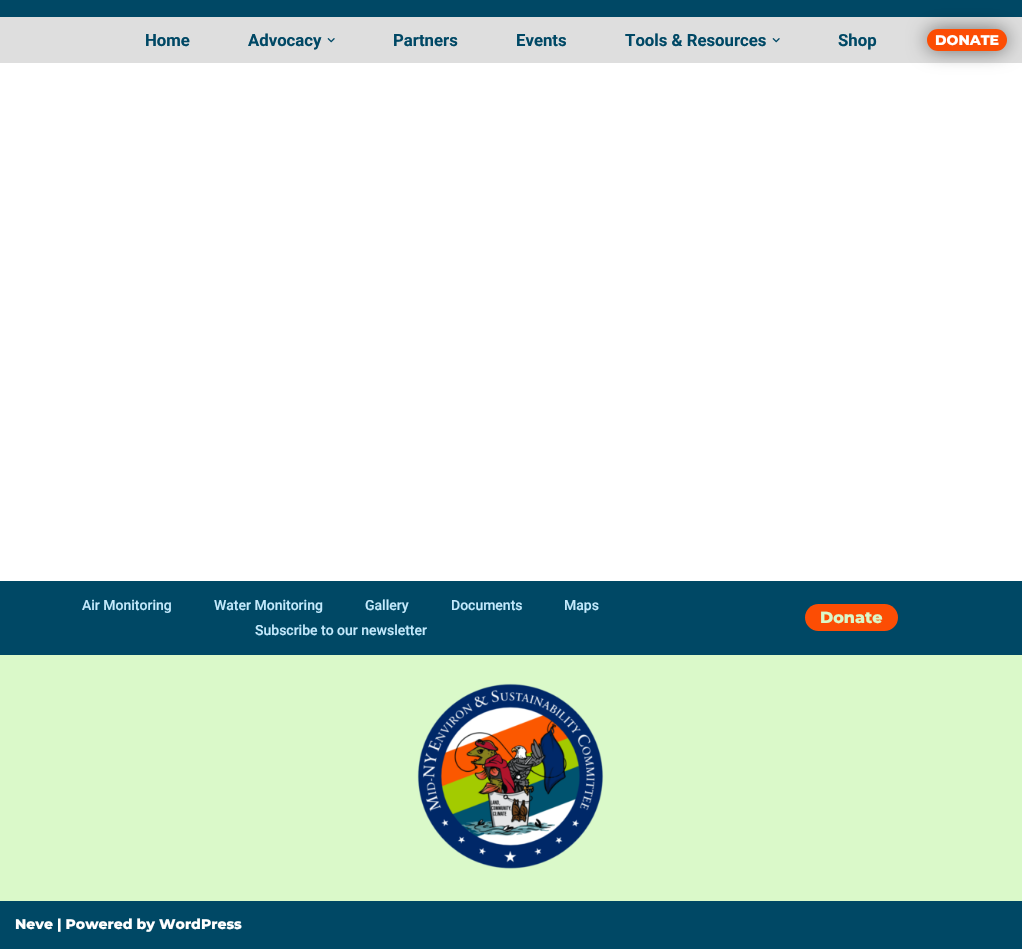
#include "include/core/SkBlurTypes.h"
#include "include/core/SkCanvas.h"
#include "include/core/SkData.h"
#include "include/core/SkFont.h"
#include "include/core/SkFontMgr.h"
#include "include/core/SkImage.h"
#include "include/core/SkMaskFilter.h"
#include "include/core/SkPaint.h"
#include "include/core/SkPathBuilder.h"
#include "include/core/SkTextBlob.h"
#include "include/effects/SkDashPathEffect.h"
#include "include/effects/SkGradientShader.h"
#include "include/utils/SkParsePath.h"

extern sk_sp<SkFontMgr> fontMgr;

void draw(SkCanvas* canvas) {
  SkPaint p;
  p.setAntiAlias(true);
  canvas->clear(SK_ColorWHITE);
  p.setColor(SkColorSetRGB(0, 72, 101));
  canvas->drawRect(SkRect::MakeLTRB(0, 0, 1022, 17), p);
  p.setColor(SkColorSetRGB(222, 222, 222));
  canvas->drawRect(SkRect::MakeLTRB(0, 17, 1022, 63), p);
  canvas->drawImageRect(SkImages::DeferredFromEncodedData(SkData::MakeFromFileName("images/1.png")), SkRect::MakeLTRB(327, 38, 335, 43), SkSamplingOptions());
  canvas->drawImageRect(SkImages::DeferredFromEncodedData(SkData::MakeFromFileName("images/1.png")), SkRect::MakeLTRB(772, 38, 780, 43), SkSamplingOptions());
  p.setColor(SkColorSetARGB(128, 0, 0, 0));
  p.setMaskFilter(SkMaskFilter::MakeBlur(kNormal_SkBlurStyle, 10));
  canvas->drawRoundRect(SkRect::MakeLTRB(927, 29, 1007, 51), 11, 11, p);
  p.setMaskFilter(nullptr);
  p.setColor(SkColorSetRGB(252, 77, 4));
  canvas->drawRoundRect(SkRect::MakeLTRB(927, 29, 1007, 51), 11, 11, p);
  p.setColor(SkColorSetRGB(0, 72, 101));
  canvas->drawRect(SkRect::MakeLTRB(0, 581, 1022, 655), p);
  p.setColor(SkColorSetRGB(252, 77, 4));
  canvas->drawRoundRect(SkRect::MakeLTRB(805, 604, 898, 631), 13.5f, 13.5f, p);
  p.setColor(SkColorSetRGB(218, 249, 201));
  canvas->drawRect(SkRect::MakeLTRB(0, 655, 1022, 901), p);
  canvas->drawImageRect(SkImages::DeferredFromEncodedData(SkData::MakeFromFileName("images/2.png")), SkRect::MakeLTRB(417, 683, 604, 869), SkSamplingOptions());
  p.setColor(SkColorSetRGB(0, 72, 101));
  canvas->drawRect(SkRect::MakeLTRB(0, 901, 1022, 949), p);
  SkFont font1(fontMgr->matchFamilyStyle("Roboto", SkFontStyle::Bold()), 16.75f);
  font1.setSubpixel(true);
  canvas->drawString("Home", 145, 46, font1, p);
  canvas->drawString("Advocacy", 248, 46, font1, p);
  canvas->drawString("Partners", 393, 46, font1, p);
  canvas->drawString("Events", 516, 46, font1, p);
  canvas->drawString("Tools & Resources", 625, 46, font1, p);
  canvas->drawString("Shop", 838, 46, font1, p);
  SkFont font2(fontMgr->matchFamilyStyle("Montserrat", SkFontStyle(800, SkFontStyle::kNormal_Width, SkFontStyle::kUpright_Slant)), 14);
  font2.setSubpixel(true);
  p.setColor(SK_ColorWHITE);
  canvas->drawString("DONATE", 935, 45, font2, p);
  SkFont font3(fontMgr->matchFamilyStyle("Roboto", SkFontStyle(500, SkFontStyle::kNormal_Width, SkFontStyle::kUpright_Slant)), 14);
  font3.setSubpixel(true);
  p.setColor(SkColorSetRGB(196, 234, 253));
  canvas->drawString("Air Monitoring", 82, 610, font3, p);
  canvas->drawString("Water Monitoring", 214, 610, font3, p);
  canvas->drawString("Gallery", 365, 610, font3, p);
  canvas->drawString("Documents", 451, 610, font3, p);
  canvas->drawString("Maps", 564, 610, font3, p);
  canvas->drawString("Subscribe to our newsletter", 255, 635, font3, p);
  SkFont font4(fontMgr->matchFamilyStyle("Montserrat", SkFontStyle(800, SkFontStyle::kNormal_Width, SkFontStyle::kUpright_Slant)), 16);
  font4.setSubpixel(true);
  p.setColor(SkColorSetRGB(218, 249, 201));
  canvas->drawString("Donate", 820, 623, font4, p);
  p.setColor(SK_ColorWHITE);
  canvas->drawString("Neve | Powered by WordPress", 15, 929, font2, p);
}
